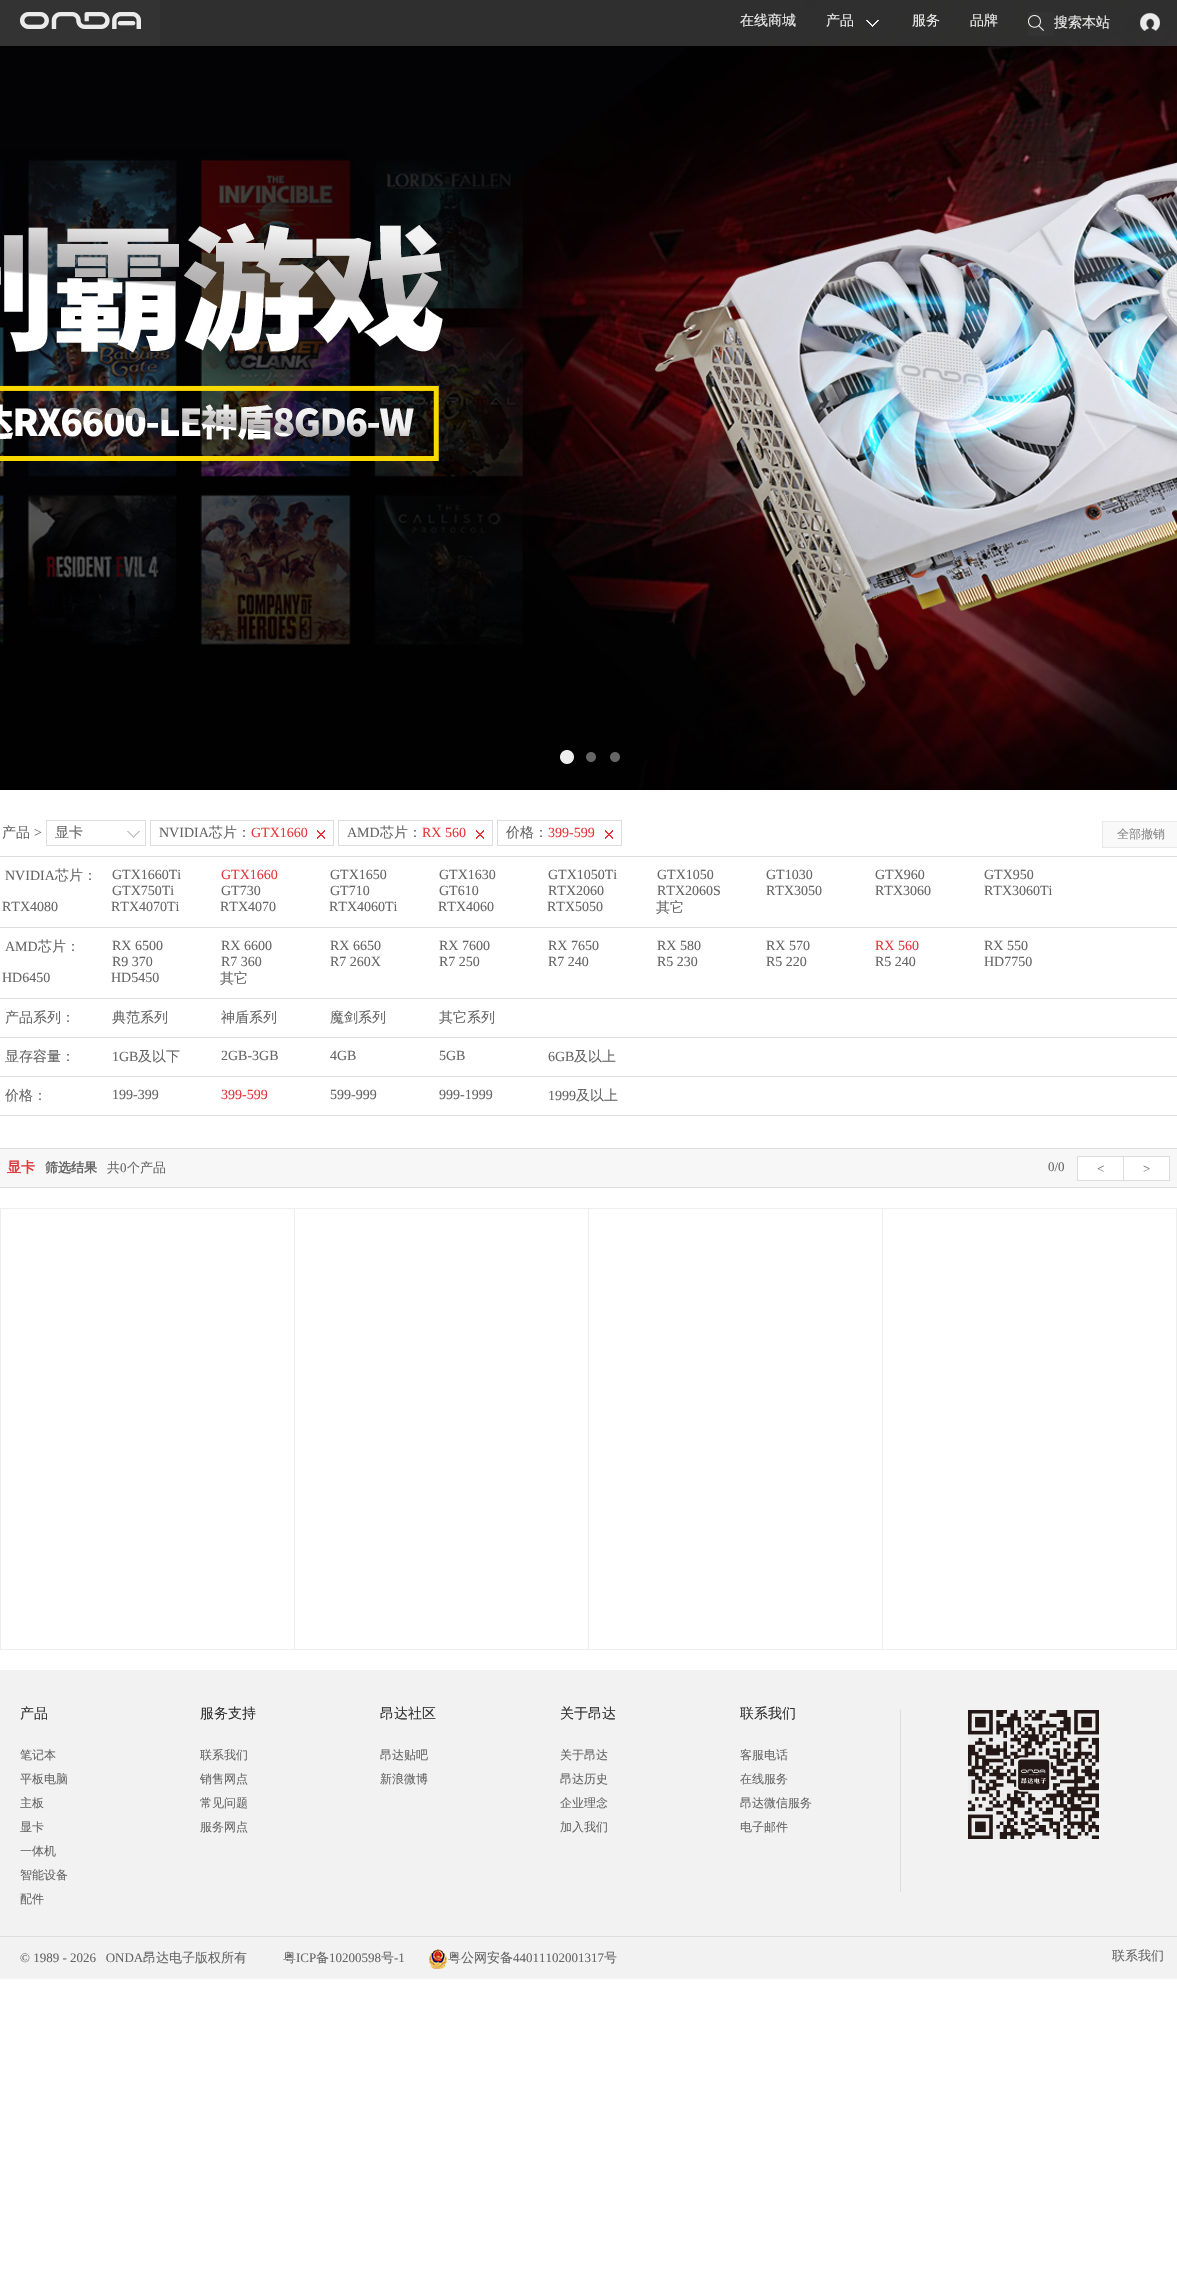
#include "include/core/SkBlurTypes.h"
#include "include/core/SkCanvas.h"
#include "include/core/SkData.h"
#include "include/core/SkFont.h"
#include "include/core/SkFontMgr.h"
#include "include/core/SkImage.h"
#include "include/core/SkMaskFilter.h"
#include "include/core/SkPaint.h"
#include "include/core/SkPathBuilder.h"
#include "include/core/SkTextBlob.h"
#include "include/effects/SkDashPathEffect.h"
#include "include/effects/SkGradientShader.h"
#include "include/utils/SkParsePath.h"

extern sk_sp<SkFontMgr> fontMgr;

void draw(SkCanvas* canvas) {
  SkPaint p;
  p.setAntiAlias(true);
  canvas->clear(SK_ColorWHITE);
  canvas->drawImageRect(SkImages::DeferredFromEncodedData(SkData::MakeFromFileName("images/1.png")), SkRect::MakeLTRB(0, 0, 1177, 790), SkSamplingOptions());
  canvas->drawImageRect(SkImages::DeferredFromEncodedData(SkData::MakeFromFileName("images/2.png")), SkRect::MakeLTRB(560, 750, 574, 764), SkSamplingOptions());
  canvas->drawImageRect(SkImages::DeferredFromEncodedData(SkData::MakeFromFileName("images/3.png")), SkRect::MakeLTRB(586, 752, 596, 762), SkSamplingOptions());
  canvas->drawImageRect(SkImages::DeferredFromEncodedData(SkData::MakeFromFileName("images/3.png")), SkRect::MakeLTRB(610, 752, 620, 762), SkSamplingOptions());
  p.setColor(SkColorSetARGB(230, 51, 51, 51));
  canvas->drawRect(SkRect::MakeLTRB(0, 0, 1177, 46), p);
  canvas->drawImageRect(SkImages::DeferredFromEncodedData(SkData::MakeFromFileName("images/4.png")), SkRect::MakeLTRB(0, 0, 160, 46), SkSamplingOptions());
  canvas->drawImageRect(SkImages::DeferredFromEncodedData(SkData::MakeFromFileName("images/5.png")), SkRect::MakeLTRB(866, 20, 879, 27), SkSamplingOptions());
  canvas->drawImageRect(SkImages::DeferredFromEncodedData(SkData::MakeFromFileName("images/6.png")), SkRect::MakeLTRB(1028, 12, 1054, 36), SkSamplingOptions());
  canvas->drawImageRect(SkImages::DeferredFromEncodedData(SkData::MakeFromFileName("images/7.png")), SkRect::MakeLTRB(1140, 13, 1160, 31), SkSamplingOptions());
  p.setColor(SkColorSetRGB(221, 221, 221));
  canvas->drawRect(SkRect::MakeLTRB(0, 856, 1177, 857), p);
  canvas->drawImageRect(SkImages::DeferredFromEncodedData(SkData::MakeFromFileName("images/8.png")), SkRect::MakeLTRB(127, 831, 140, 838), SkSamplingOptions());
  p.setStyle(SkPaint::kStroke_Style);
  p.setStrokeWidth(1);
  canvas->drawRect(SkRect::MakeLTRB(46.5f, 820.5f, 145.5f, 845.5f), p);
  canvas->drawImageRect(SkImages::DeferredFromEncodedData(SkData::MakeFromFileName("images/9.png")), SkRect::MakeLTRB(317, 830, 325, 839), SkSamplingOptions());
  canvas->drawRect(SkRect::MakeLTRB(150.5f, 820.5f, 333.5f, 845.5f), p);
  canvas->drawImageRect(SkImages::DeferredFromEncodedData(SkData::MakeFromFileName("images/9.png")), SkRect::MakeLTRB(476, 830, 484, 839), SkSamplingOptions());
  canvas->drawRect(SkRect::MakeLTRB(338.5f, 820.5f, 492.5f, 845.5f), p);
  canvas->drawImageRect(SkImages::DeferredFromEncodedData(SkData::MakeFromFileName("images/9.png")), SkRect::MakeLTRB(605, 830, 613, 839), SkSamplingOptions());
  canvas->drawRect(SkRect::MakeLTRB(497.5f, 820.5f, 621.5f, 845.5f), p);
  p.setStyle(SkPaint::kFill_Style);
  p.setColor(SkColorSetRGB(249, 249, 249));
  canvas->drawRect(SkRect::MakeLTRB(1102.5f, 821.5f, 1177.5f, 847.5f), p);
  p.setStyle(SkPaint::kStroke_Style);
  p.setColor(SkColorSetRGB(232, 232, 232));
  canvas->drawRect(SkRect::MakeLTRB(1102.5f, 821.5f, 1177.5f, 847.5f), p);
  p.setStyle(SkPaint::kFill_Style);
  p.setColor(SkColorSetRGB(221, 221, 221));
  canvas->drawRect(SkRect::MakeLTRB(0, 927, 1177, 928), p);
  canvas->drawRect(SkRect::MakeLTRB(0, 998, 1177, 999), p);
  canvas->drawRect(SkRect::MakeLTRB(0, 1037, 1177, 1038), p);
  canvas->drawRect(SkRect::MakeLTRB(0, 1076, 1177, 1077), p);
  canvas->drawRect(SkRect::MakeLTRB(0, 1115, 1177, 1116), p);
  p.setColor(SkColorSetRGB(247, 247, 247));
  canvas->drawRect(SkRect::MakeLTRB(0, 1149, 1177, 1187), p);
  p.setColor(SkColorSetRGB(221, 221, 221));
  canvas->drawRect(SkRect::MakeLTRB(0, 1148, 1177, 1149), p);
  canvas->drawRect(SkRect::MakeLTRB(0, 1187, 1177, 1188), p);
  p.setColor(SK_ColorWHITE);
  canvas->drawRect(SkRect::MakeLTRB(1077.5f, 1156.5f, 1123.5f, 1180.5f), p);
  p.setStyle(SkPaint::kStroke_Style);
  p.setColor(SkColorSetRGB(221, 221, 221));
  canvas->drawRect(SkRect::MakeLTRB(1077.5f, 1156.5f, 1123.5f, 1180.5f), p);
  p.setStyle(SkPaint::kFill_Style);
  p.setColor(SK_ColorWHITE);
  canvas->drawRect(SkRect::MakeLTRB(1123.5f, 1156.5f, 1169.5f, 1180.5f), p);
  p.setStyle(SkPaint::kStroke_Style);
  p.setColor(SkColorSetRGB(221, 221, 221));
  canvas->drawRect(SkRect::MakeLTRB(1123.5f, 1156.5f, 1169.5f, 1180.5f), p);
  p.setStyle(SkPaint::kFill_Style);
  p.setColor(SkColorSetRGB(238, 238, 238));
  canvas->drawRect(SkRect::MakeLTRB(0, 1208, 1177, 1209), p);
  canvas->drawRect(SkRect::MakeLTRB(0, 1208, 1, 1650), p);
  canvas->drawRect(SkRect::MakeLTRB(294, 1209, 295, 1650), p);
  canvas->drawRect(SkRect::MakeLTRB(1, 1649, 295, 1650), p);
  canvas->drawRect(SkRect::MakeLTRB(588, 1209, 589, 1650), p);
  canvas->drawRect(SkRect::MakeLTRB(295, 1649, 589, 1650), p);
  canvas->drawRect(SkRect::MakeLTRB(882, 1209, 883, 1650), p);
  canvas->drawRect(SkRect::MakeLTRB(589, 1649, 883, 1650), p);
  canvas->drawRect(SkRect::MakeLTRB(1176, 1209, 1177, 1650), p);
  canvas->drawRect(SkRect::MakeLTRB(883, 1649, 1177, 1650), p);
  p.setColor(SkColorSetRGB(242, 242, 242));
  canvas->drawRect(SkRect::MakeLTRB(0, 1670, 1177, 1979), p);
  p.setColor(SkColorSetRGB(221, 221, 221));
  canvas->drawRect(SkRect::MakeLTRB(900, 1710, 901, 1892), p);
  canvas->drawImageRect(SkImages::DeferredFromEncodedData(SkData::MakeFromFileName("images/10.png")), SkRect::MakeLTRB(968, 1710, 1099, 1839), SkSamplingOptions());
  canvas->drawRect(SkRect::MakeLTRB(0, 1936, 1177, 1937), p);
  canvas->drawImageRect(SkImages::DeferredFromEncodedData(SkData::MakeFromFileName("images/11.png")), SkRect::MakeLTRB(429, 1949, 447, 1969), SkSamplingOptions());
  SkFont font1(fontMgr->matchFamilyStyle("WenQuanYi Zen Hei", SkFontStyle(500, SkFontStyle::kNormal_Width, SkFontStyle::kUpright_Slant)), 14);
  font1.setSubpixel(true);
  p.setColor(SkColorSetRGB(234, 234, 234));
  canvas->drawString("在线商城", 740, 25, font1, p);
  canvas->drawString("产品", 826, 25, font1, p);
  canvas->drawString("服务", 912, 25, font1, p);
  canvas->drawString("品牌", 970, 25, font1, p);
  canvas->drawString("搜索本站", 1054, 27, font1, p);
  p.setColor(SkColorSetRGB(102, 102, 102));
  canvas->drawString("产品", 2, 837, font1, p);
  SkFont font2(fontMgr->matchFamilyStyle("Liberation Serif", SkFontStyle::Normal()), 14);
  font2.setSubpixel(true);
  canvas->drawString(">", 34, 837, font2, p);
  canvas->drawString("显卡", 55, 837, font1, p);
  canvas->drawString("NVIDIA", 159, 837, font2, p);
  canvas->drawString("芯片：", 209, 837, font1, p);
  p.setColor(SkColorSetRGB(228, 57, 60));
  canvas->drawString("GTX1660", 251, 837, font2, p);
  p.setColor(SkColorSetRGB(102, 102, 102));
  canvas->drawString("AMD", 347, 837, font2, p);
  canvas->drawString("芯片：", 380, 837, font1, p);
  p.setColor(SkColorSetRGB(228, 57, 60));
  canvas->drawString("RX 560", 422, 837, font2, p);
  p.setColor(SkColorSetRGB(102, 102, 102));
  canvas->drawString("价格：", 506, 837, font1, p);
  p.setColor(SkColorSetRGB(228, 57, 60));
  canvas->drawString("399-599", 548, 837, font2, p);
  SkFont font3(fontMgr->matchFamilyStyle("WenQuanYi Zen Hei", SkFontStyle(500, SkFontStyle::kNormal_Width, SkFontStyle::kUpright_Slant)), 12);
  font3.setSubpixel(true);
  p.setColor(SkColorSetRGB(136, 136, 136));
  canvas->drawString("全部撤销", 1117, 838, font3, p);
  p.setColor(SkColorSetRGB(102, 102, 102));
  canvas->drawString("NVIDIA", 5, 880, font2, p);
  canvas->drawString("芯片：", 55, 880, font1, p);
  canvas->drawString("GTX1660Ti", 112, 879, font2, p);
  p.setColor(SkColorSetRGB(228, 57, 60));
  canvas->drawString("GTX1660", 221, 879, font2, p);
  p.setColor(SkColorSetRGB(102, 102, 102));
  canvas->drawString("GTX1650", 330, 879, font2, p);
  canvas->drawString("GTX1630", 439, 879, font2, p);
  canvas->drawString("GTX1050Ti", 548, 879, font2, p);
  canvas->drawString("GTX1050", 657, 879, font2, p);
  canvas->drawString("GT1030", 766, 879, font2, p);
  canvas->drawString("GTX960", 875, 879, font2, p);
  canvas->drawString("GTX950", 984, 879, font2, p);
  canvas->drawString("GTX750Ti", 112, 895, font2, p);
  canvas->drawString("GT730", 221, 895, font2, p);
  canvas->drawString("GT710", 330, 895, font2, p);
  canvas->drawString("GT610", 439, 895, font2, p);
  canvas->drawString("RTX2060", 548, 895, font2, p);
  canvas->drawString("RTX2060S", 657, 895, font2, p);
  canvas->drawString("RTX3050", 766, 895, font2, p);
  canvas->drawString("RTX3060", 875, 895, font2, p);
  canvas->drawString("RTX3060Ti", 984, 895, font2, p);
  canvas->drawString("RTX4080", 2, 911, font2, p);
  canvas->drawString("RTX4070Ti", 111, 911, font2, p);
  canvas->drawString("RTX4070", 220, 911, font2, p);
  canvas->drawString("RTX4060Ti", 329, 911, font2, p);
  canvas->drawString("RTX4060", 438, 911, font2, p);
  canvas->drawString("RTX5050", 547, 911, font2, p);
  canvas->drawString("其它", 656, 912, font1, p);
  canvas->drawString("AMD", 5, 951, font2, p);
  canvas->drawString("芯片：", 38, 951, font1, p);
  canvas->drawString("RX 6500", 112, 950, font2, p);
  canvas->drawString("RX 6600", 221, 950, font2, p);
  canvas->drawString("RX 6650", 330, 950, font2, p);
  canvas->drawString("RX 7600", 439, 950, font2, p);
  canvas->drawString("RX 7650", 548, 950, font2, p);
  canvas->drawString("RX 580", 657, 950, font2, p);
  canvas->drawString("RX 570", 766, 950, font2, p);
  p.setColor(SkColorSetRGB(228, 57, 60));
  canvas->drawString("RX 560", 875, 950, font2, p);
  p.setColor(SkColorSetRGB(102, 102, 102));
  canvas->drawString("RX 550", 984, 950, font2, p);
  canvas->drawString("R9 370", 112, 966, font2, p);
  canvas->drawString("R7 360", 221, 966, font2, p);
  canvas->drawString("R7 260X", 330, 966, font2, p);
  canvas->drawString("R7 250", 439, 966, font2, p);
  canvas->drawString("R7 240", 548, 966, font2, p);
  canvas->drawString("R5 230", 657, 966, font2, p);
  canvas->drawString("R5 220", 766, 966, font2, p);
  canvas->drawString("R5 240", 875, 966, font2, p);
  canvas->drawString("HD7750", 984, 966, font2, p);
  canvas->drawString("HD6450", 2, 982, font2, p);
  canvas->drawString("HD5450", 111, 982, font2, p);
  canvas->drawString("其它", 220, 983, font1, p);
  canvas->drawString("产品系列：", 5, 1022, font1, p);
  canvas->drawString("典范系列", 112, 1022, font1, p);
  canvas->drawString("神盾系列", 221, 1022, font1, p);
  canvas->drawString("魔剑系列", 330, 1022, font1, p);
  canvas->drawString("其它系列", 439, 1022, font1, p);
  canvas->drawString("显存容量：", 5, 1061, font1, p);
  canvas->drawString("1GB", 112, 1061, font2, p);
  canvas->drawString("及以下", 138, 1061, font1, p);
  canvas->drawString("2GB-3GB", 221, 1060, font2, p);
  canvas->drawString("4GB", 330, 1060, font2, p);
  canvas->drawString("5GB", 439, 1060, font2, p);
  canvas->drawString("6GB", 548, 1061, font2, p);
  canvas->drawString("及以上", 574, 1061, font1, p);
  canvas->drawString("价格：", 5, 1100, font1, p);
  canvas->drawString("199-399", 112, 1099, font2, p);
  p.setColor(SkColorSetRGB(228, 57, 60));
  canvas->drawString("399-599", 221, 1099, font2, p);
  p.setColor(SkColorSetRGB(102, 102, 102));
  canvas->drawString("599-999", 330, 1099, font2, p);
  canvas->drawString("999-1999", 439, 1099, font2, p);
  canvas->drawString("1999", 548, 1100, font2, p);
  canvas->drawString("及以上", 576, 1100, font1, p);
  SkFont font4(fontMgr->matchFamilyStyle("WenQuanYi Zen Hei", SkFontStyle::Bold()), 14);
  font4.setSubpixel(true);
  p.setColor(SkColorSetRGB(228, 57, 60));
  canvas->drawString("显卡", 7, 1172, font4, p);
  SkFont font5(fontMgr->matchFamilyStyle("WenQuanYi Zen Hei", SkFontStyle::Bold()), 13);
  font5.setSubpixel(true);
  p.setColor(SkColorSetRGB(102, 102, 102));
  canvas->drawString("筛选结果", 45, 1172, font5, p);
  SkFont font6(fontMgr->matchFamilyStyle("WenQuanYi Zen Hei", SkFontStyle(500, SkFontStyle::kNormal_Width, SkFontStyle::kUpright_Slant)), 13);
  font6.setSubpixel(true);
  canvas->drawString("共", 107, 1172, font6, p);
  SkFont font7(fontMgr->matchFamilyStyle("Liberation Serif", SkFontStyle::Normal()), 13);
  font7.setSubpixel(true);
  canvas->drawString("0", 120, 1172, font7, p);
  canvas->drawString("个产品", 127, 1172, font6, p);
  canvas->drawString("0/0", 1048, 1171, font7, p);
  canvas->drawString("<", 1097, 1173, font7, p);
  canvas->drawString(">", 1143, 1173, font7, p);
  p.setColor(SkColorSetRGB(51, 51, 51));
  canvas->drawString("产品", 20, 1718, font1, p);
  p.setColor(SkColorSetRGB(102, 102, 102));
  canvas->drawString("笔记本", 20, 1759, font3, p);
  canvas->drawString("平板电脑", 20, 1783, font3, p);
  canvas->drawString("主板", 20, 1807, font3, p);
  canvas->drawString("显卡", 20, 1831, font3, p);
  canvas->drawString("一体机", 20, 1855, font3, p);
  canvas->drawString("智能设备", 20, 1879, font3, p);
  canvas->drawString("配件", 20, 1903, font3, p);
  p.setColor(SkColorSetRGB(51, 51, 51));
  canvas->drawString("服务支持", 200, 1718, font1, p);
  p.setColor(SkColorSetRGB(102, 102, 102));
  canvas->drawString("联系我们", 200, 1759, font3, p);
  canvas->drawString("销售网点", 200, 1783, font3, p);
  canvas->drawString("常见问题", 200, 1807, font3, p);
  canvas->drawString("服务网点", 200, 1831, font3, p);
  p.setColor(SkColorSetRGB(51, 51, 51));
  canvas->drawString("昂达社区", 380, 1718, font1, p);
  p.setColor(SkColorSetRGB(102, 102, 102));
  canvas->drawString("昂达贴吧", 380, 1759, font3, p);
  canvas->drawString("新浪微博", 380, 1783, font3, p);
  p.setColor(SkColorSetRGB(51, 51, 51));
  canvas->drawString("关于昂达", 560, 1718, font1, p);
  p.setColor(SkColorSetRGB(102, 102, 102));
  canvas->drawString("关于昂达", 560, 1759, font3, p);
  canvas->drawString("昂达历史", 560, 1783, font3, p);
  canvas->drawString("企业理念", 560, 1807, font3, p);
  canvas->drawString("加入我们", 560, 1831, font3, p);
  p.setColor(SkColorSetRGB(51, 51, 51));
  canvas->drawString("联系我们", 740, 1718, font1, p);
  p.setColor(SkColorSetRGB(102, 102, 102));
  canvas->drawString("客服电话", 740, 1759, font3, p);
  canvas->drawString("在线服务", 740, 1783, font3, p);
  canvas->drawString("昂达微信服务", 740, 1807, font3, p);
  canvas->drawString("电子邮件", 740, 1831, font3, p);
  canvas->drawString("© 1989 - 2026   ONDA", 20, 1962, font7, p);
  canvas->drawString("昂达电子版权所有", 143, 1962, font6, p);
  canvas->drawString("粤", 283, 1962, font6, p);
  canvas->drawString("ICP", 296, 1962, font7, p);
  canvas->drawString("备", 316, 1962, font6, p);
  canvas->drawString("10200598", 329, 1962, font7, p);
  canvas->drawString("号", 381, 1962, font6, p);
  canvas->drawString("-1", 394, 1962, font7, p);
  canvas->drawString("粤公网安备", 448, 1962, font6, p);
  canvas->drawString("44011102001317", 513, 1962, font7, p);
  canvas->drawString("号", 604, 1962, font6, p);
  canvas->drawString("联系我们", 1112, 1960, font6, p);
}
